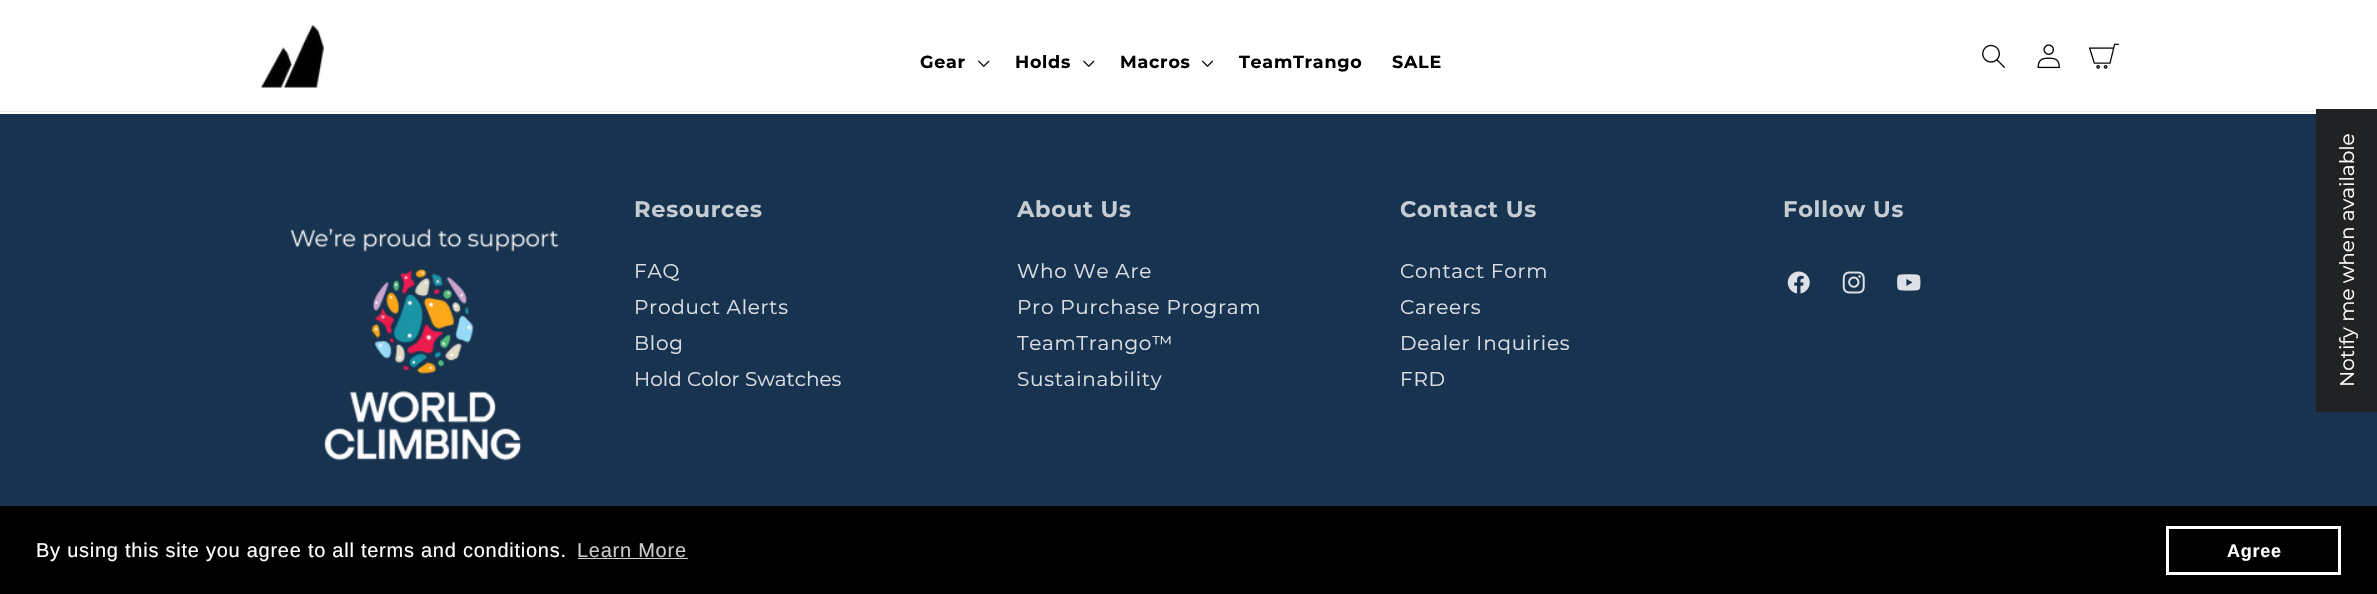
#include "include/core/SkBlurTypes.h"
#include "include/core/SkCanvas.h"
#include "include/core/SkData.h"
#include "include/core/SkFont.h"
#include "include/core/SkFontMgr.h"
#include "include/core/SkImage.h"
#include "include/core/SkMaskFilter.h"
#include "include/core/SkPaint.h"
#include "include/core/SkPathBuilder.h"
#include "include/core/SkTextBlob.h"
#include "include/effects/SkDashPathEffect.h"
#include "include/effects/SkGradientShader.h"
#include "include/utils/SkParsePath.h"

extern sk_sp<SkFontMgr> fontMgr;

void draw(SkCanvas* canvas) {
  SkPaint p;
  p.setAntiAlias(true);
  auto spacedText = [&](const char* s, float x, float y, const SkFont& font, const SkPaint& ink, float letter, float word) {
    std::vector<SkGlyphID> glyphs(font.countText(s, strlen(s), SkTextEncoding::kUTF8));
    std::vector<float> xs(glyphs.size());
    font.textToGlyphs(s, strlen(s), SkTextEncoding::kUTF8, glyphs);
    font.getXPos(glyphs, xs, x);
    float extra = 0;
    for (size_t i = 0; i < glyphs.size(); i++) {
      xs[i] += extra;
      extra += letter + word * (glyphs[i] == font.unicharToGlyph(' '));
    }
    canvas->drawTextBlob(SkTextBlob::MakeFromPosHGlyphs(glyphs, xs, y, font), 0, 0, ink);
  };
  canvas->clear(SK_ColorWHITE);
  p.setColor(SkColorSetRGB(235, 235, 235));
  canvas->drawRect(SkRect::MakeLTRB(0, 111, 2316, 112), p);
  canvas->drawImageRect(SkImages::DeferredFromEncodedData(SkData::MakeFromFileName("images/1.png")), SkRect::MakeLTRB(261, 24, 324, 88), SkSamplingOptions());
  canvas->drawImageRect(SkImages::DeferredFromEncodedData(SkData::MakeFromFileName("images/2.png")), SkRect::MakeLTRB(978, 60, 990, 67), SkSamplingOptions());
  canvas->drawImageRect(SkImages::DeferredFromEncodedData(SkData::MakeFromFileName("images/2.png")), SkRect::MakeLTRB(1083, 60, 1095, 67), SkSamplingOptions());
  canvas->drawImageRect(SkImages::DeferredFromEncodedData(SkData::MakeFromFileName("images/3.png")), SkRect::MakeLTRB(1201, 60, 1214, 67), SkSamplingOptions());
  canvas->drawImageRect(SkImages::DeferredFromEncodedData(SkData::MakeFromFileName("images/4.png")), SkRect::MakeLTRB(1982, 44, 2005, 68), SkSamplingOptions());
  canvas->drawImageRect(SkImages::DeferredFromEncodedData(SkData::MakeFromFileName("images/5.png")), SkRect::MakeLTRB(2037, 44, 2060, 69), SkSamplingOptions());
  canvas->drawImageRect(SkImages::DeferredFromEncodedData(SkData::MakeFromFileName("images/6.png")), SkRect::MakeLTRB(2089, 43, 2119, 69), SkSamplingOptions());
  p.setColor(SkColorSetRGB(23, 51, 79));
  canvas->drawRect(SkRect::MakeLTRB(0, 114, 2377, 506), p);
  canvas->drawImageRect(SkImages::DeferredFromEncodedData(SkData::MakeFromFileName("images/7.png")), SkRect::MakeLTRB(290, 228, 559, 461), SkSamplingOptions());
  canvas->drawImageRect(SkImages::DeferredFromEncodedData(SkData::MakeFromFileName("images/8.png")), SkRect::MakeLTRB(1787, 271, 1810, 294), SkSamplingOptions());
  canvas->drawImageRect(SkImages::DeferredFromEncodedData(SkData::MakeFromFileName("images/9.png")), SkRect::MakeLTRB(1842, 271, 1865, 294), SkSamplingOptions());
  canvas->drawImageRect(SkImages::DeferredFromEncodedData(SkData::MakeFromFileName("images/10.png")), SkRect::MakeLTRB(1897, 274, 1921, 291), SkSamplingOptions());
  p.setColor(SkColorSetRGB(32, 34, 35));
  canvas->drawRect(SkRect::MakeLTRB(2316, 109, 2377, 412), p);
  p.setColor(SK_ColorBLACK);
  canvas->drawRect(SkRect::MakeLTRB(0, 506, 2377, 594), p);
  p.setColor(SkColorSetRGB(204, 204, 204));
  canvas->drawRect(SkRect::MakeLTRB(578, 558, 688, 559), p);
  p.setStyle(SkPaint::kStroke_Style);
  p.setStrokeWidth(3);
  p.setColor(SK_ColorWHITE);
  canvas->drawRect(SkRect::MakeLTRB(2167.5f, 527.5f, 2339.5f, 573.5f), p);
  SkFont font1(fontMgr->matchFamilyStyle("Montserrat", SkFontStyle::Bold()), 17.5f);
  font1.setSubpixel(true);
  p.setStyle(SkPaint::kFill_Style);
  p.setColor(SK_ColorBLACK);
  spacedText("Gear", 920, 68, font1, p, 0.75f, 0);
  spacedText("Holds", 1015, 68, font1, p, 0.75f, 0);
  spacedText("Macros", 1120, 68, font1, p, 0.75f, 0);
  spacedText("TeamTrango", 1239, 68, font1, p, 0.75f, 0);
  spacedText("SALE", 1392, 68, font1, p, 0.75f, 0);
  SkFont font2(fontMgr->matchFamilyStyle("Montserrat", SkFontStyle::Bold()), 22.5f);
  font2.setSubpixel(true);
  p.setColor(SkColorSetRGB(197, 204, 211));
  spacedText("Resources", 634, 217, font2, p, 0.75f, 0);
  SkFont font3(fontMgr->matchFamilyStyle("Montserrat", SkFontStyle::Normal()), 20);
  font3.setSubpixel(true);
  p.setColor(SkColorSetRGB(220, 224, 229));
  spacedText("FAQ", 634, 278, font3, p, 0.75f, 0);
  spacedText("Product Alerts", 634, 314, font3, p, 0.75f, 0);
  spacedText("Blog", 634, 350, font3, p, 0.75f, 0);
  canvas->drawString("Hold Color Swatches", 634, 386, font3, p);
  p.setColor(SkColorSetRGB(197, 204, 211));
  spacedText("About Us", 1017, 217, font2, p, 0.75f, 0);
  p.setColor(SkColorSetRGB(220, 224, 229));
  spacedText("Who We Are", 1017, 278, font3, p, 0.75f, 0);
  spacedText("Pro Purchase Program", 1017, 314, font3, p, 0.75f, 0);
  spacedText("TeamTrango™", 1017, 350, font3, p, 0.75f, 0);
  spacedText("Sustainability", 1017, 386, font3, p, 0.75f, 0);
  p.setColor(SkColorSetRGB(197, 204, 211));
  spacedText("Contact Us", 1400, 217, font2, p, 0.75f, 0);
  p.setColor(SkColorSetRGB(220, 224, 229));
  spacedText("Contact Form", 1400, 278, font3, p, 0.75f, 0);
  spacedText("Careers", 1400, 314, font3, p, 0.75f, 0);
  spacedText("Dealer Inquiries", 1400, 350, font3, p, 0.75f, 0);
  spacedText("FRD", 1400, 386, font3, p, 0.75f, 0);
  p.setColor(SkColorSetRGB(197, 204, 211));
  spacedText("Follow Us", 1783, 217, font2, p, 0.75f, 0);
  p.setColor(SK_ColorWHITE);
  canvas->save();
  canvas->rotate(-90, 2354, 387);
  canvas->drawString("Notify me when available", 2354, 387, font3, p);
  canvas->restore();
  SkFont font4(fontMgr->matchFamilyStyle("Liberation Sans", SkFontStyle::Normal()), 20);
  font4.setSubpixel(true);
  spacedText("By using this site you agree to all terms and conditions.", 36, 557, font4, p, 0.75f, 0);
  p.setColor(SkColorSetRGB(204, 204, 204));
  spacedText("Learn More", 577, 557, font4, p, 0.75f, 0);
  SkFont font5(fontMgr->matchFamilyStyle("Liberation Sans", SkFontStyle::Bold()), 18);
  font5.setSubpixel(true);
  p.setColor(SK_ColorWHITE);
  spacedText("Agree", 2227, 557, font5, p, 0.75f, 0);
}
